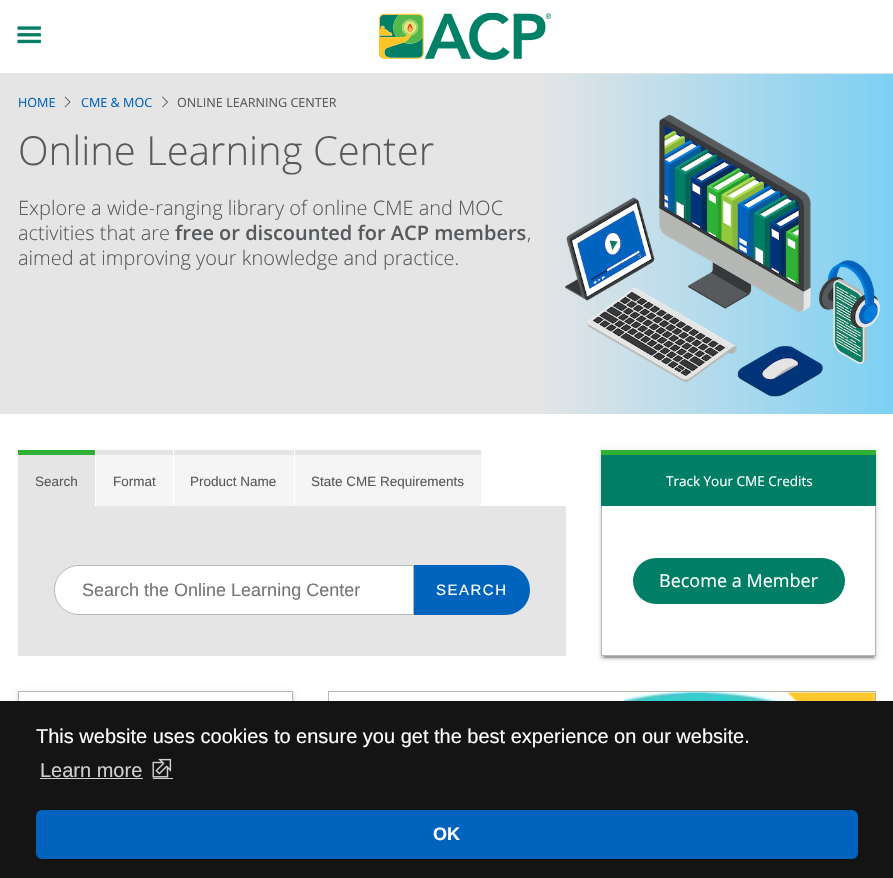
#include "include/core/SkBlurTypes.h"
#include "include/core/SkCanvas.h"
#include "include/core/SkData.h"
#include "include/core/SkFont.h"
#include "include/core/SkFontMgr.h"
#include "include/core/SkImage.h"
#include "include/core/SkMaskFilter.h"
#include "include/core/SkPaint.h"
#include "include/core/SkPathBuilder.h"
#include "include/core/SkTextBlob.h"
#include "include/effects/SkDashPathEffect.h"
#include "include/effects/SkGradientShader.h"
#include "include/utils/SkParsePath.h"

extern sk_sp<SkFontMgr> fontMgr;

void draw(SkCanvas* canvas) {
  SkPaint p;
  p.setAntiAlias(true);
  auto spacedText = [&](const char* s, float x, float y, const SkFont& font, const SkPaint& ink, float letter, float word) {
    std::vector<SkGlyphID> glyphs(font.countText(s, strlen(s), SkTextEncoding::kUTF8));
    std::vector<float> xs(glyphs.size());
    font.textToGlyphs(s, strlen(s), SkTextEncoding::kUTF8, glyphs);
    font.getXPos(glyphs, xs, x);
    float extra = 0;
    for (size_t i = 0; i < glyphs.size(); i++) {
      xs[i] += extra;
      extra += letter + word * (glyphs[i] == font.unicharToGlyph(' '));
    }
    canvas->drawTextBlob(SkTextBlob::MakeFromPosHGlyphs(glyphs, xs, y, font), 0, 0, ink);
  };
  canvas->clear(SK_ColorWHITE);
  p.setColor(SkColorSetRGB(229, 229, 229));
  canvas->drawRect(SkRect::MakeLTRB(0, 73, 893, 74), p);
  canvas->drawImageRect(SkImages::DeferredFromEncodedData(SkData::MakeFromFileName("images/1.png")), SkRect::MakeLTRB(17, 26, 41, 44), SkSamplingOptions());
  canvas->drawImageRect(SkImages::DeferredFromEncodedData(SkData::MakeFromFileName("images/2.png")), SkRect::MakeLTRB(379, 13, 551, 60), SkSamplingOptions());
  {
    const SkColor colors[] = {SkColorSetRGB(229, 229, 229), SkColorSetRGB(124, 208, 243)};
    const float stops[] = {0.6f, 1};
    const SkPoint ends[] = {{0, 234}, {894, 234}};
    p.setShader(SkGradientShader::MakeLinear(ends, colors, stops, 2, SkTileMode::kClamp));
    p.setAlpha(255);
  }
  canvas->drawRect(SkRect::MakeLTRB(0, 74, 893, 414), p);
  canvas->drawImageRect(SkImages::DeferredFromEncodedData(SkData::MakeFromFileName("images/3.png")), SkRect::MakeLTRB(64, 96, 71, 108), SkSamplingOptions());
  canvas->drawImageRect(SkImages::DeferredFromEncodedData(SkData::MakeFromFileName("images/4.png")), SkRect::MakeLTRB(162, 96, 168, 108), SkSamplingOptions());
  canvas->drawImageRect(SkImages::DeferredFromEncodedData(SkData::MakeFromFileName("images/5.png")), SkRect::MakeLTRB(565, 115, 880, 397), SkSamplingOptions());
  p.setShader(nullptr);
  p.setColor(SkColorSetRGB(229, 229, 229));
  canvas->drawRect(SkRect::MakeLTRB(18, 455, 95, 506), p);
  p.setColor(SkColorSetRGB(46, 177, 53));
  canvas->drawRect(SkRect::MakeLTRB(18, 450, 95, 455), p);
  p.setColor(SkColorSetRGB(245, 245, 245));
  canvas->drawRect(SkRect::MakeLTRB(96, 455, 173, 506), p);
  p.setColor(SkColorSetRGB(229, 229, 229));
  canvas->drawRect(SkRect::MakeLTRB(96, 450, 173, 455), p);
  p.setColor(SkColorSetRGB(245, 245, 245));
  canvas->drawRect(SkRect::MakeLTRB(174, 455, 294, 506), p);
  p.setColor(SkColorSetRGB(229, 229, 229));
  canvas->drawRect(SkRect::MakeLTRB(174, 450, 294, 455), p);
  p.setColor(SkColorSetRGB(245, 245, 245));
  canvas->drawRect(SkRect::MakeLTRB(295, 455, 481, 506), p);
  p.setColor(SkColorSetRGB(229, 229, 229));
  canvas->drawRect(SkRect::MakeLTRB(295, 450, 481, 455), p);
  canvas->drawRect(SkRect::MakeLTRB(18, 506, 566, 656), p);
  p.setColor(SK_ColorWHITE);
  canvas->drawPath(SkPathBuilder().moveTo(79, 565.5f).lineTo(413.5f, 565.5f).lineTo(413.5f, 614.5f).lineTo(79, 614.5f).cubicTo(65.5f, 614.5f, 54.5f, 603.5f, 54.5f, 590).cubicTo(54.5f, 576.5f, 65.5f, 565.5f, 79, 565.5f).close().detach(), p);
  p.setStyle(SkPaint::kStroke_Style);
  p.setStrokeWidth(1);
  p.setColor(SkColorSetRGB(181, 183, 180));
  canvas->drawPath(SkPathBuilder().moveTo(79, 565.5f).lineTo(413.5f, 565.5f).lineTo(413.5f, 614.5f).lineTo(79, 614.5f).cubicTo(65.5f, 614.5f, 54.5f, 603.5f, 54.5f, 590).cubicTo(54.5f, 576.5f, 65.5f, 565.5f, 79, 565.5f).close().detach(), p);
  p.setStyle(SkPaint::kFill_Style);
  p.setColor(SkColorSetRGB(0, 99, 190));
  canvas->drawPath(SkPathBuilder().moveTo(414, 565).lineTo(505, 565).cubicTo(519, 565, 530, 576, 530, 590).cubicTo(530, 604, 519, 615, 505, 615).lineTo(414, 615).close().detach(), p);
  canvas->save();
  canvas->clipPath(SkPathBuilder(SkPathFillType::kEvenOdd).moveTo(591, 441).lineTo(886, 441).lineTo(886, 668).lineTo(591, 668).close().moveTo(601, 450).lineTo(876, 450).lineTo(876, 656).lineTo(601, 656).close().detach(), true);
  p.setColor(SkColorSetARGB(31, 0, 0, 0));
  p.setMaskFilter(SkMaskFilter::MakeBlur(kNormal_SkBlurStyle, 3));
  canvas->drawRect(SkRect::MakeLTRB(601, 451, 876, 658), p);
  p.setMaskFilter(nullptr);
  canvas->restore();
  canvas->save();
  canvas->clipRect(SkRect::MakeLTRB(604, 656, 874, 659));
  p.setColor(SkColorSetARGB(51, 0, 0, 0));
  p.setMaskFilter(SkMaskFilter::MakeBlur(kNormal_SkBlurStyle, 0.5f));
  canvas->drawRect(SkRect::MakeLTRB(604, 456, 874, 658), p);
  p.setMaskFilter(nullptr);
  canvas->restore();
  canvas->save();
  canvas->clipPath(SkPathBuilder(SkPathFillType::kEvenOdd).moveTo(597, 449).lineTo(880, 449).lineTo(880, 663).lineTo(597, 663).close().moveTo(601, 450).lineTo(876, 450).lineTo(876, 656).lineTo(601, 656).close().detach(), true);
  p.setColor(SkColorSetARGB(36, 0, 0, 0));
  p.setMaskFilter(SkMaskFilter::MakeBlur(kNormal_SkBlurStyle, 1));
  canvas->drawRect(SkRect::MakeLTRB(601, 453, 876, 659), p);
  p.setMaskFilter(nullptr);
  canvas->restore();
  p.setColor(SkColorSetRGB(0, 126, 102));
  canvas->drawRect(SkRect::MakeLTRB(601, 455, 876, 506), p);
  p.setColor(SkColorSetRGB(46, 177, 53));
  canvas->drawRect(SkRect::MakeLTRB(601, 450, 876, 455), p);
  p.setColor(SkColorSetRGB(181, 183, 180));
  canvas->drawRect(SkRect::MakeLTRB(875, 506, 876, 656), p);
  canvas->drawRect(SkRect::MakeLTRB(601, 655, 876, 656), p);
  canvas->drawRect(SkRect::MakeLTRB(601, 506, 602, 656), p);
  p.setColor(SkColorSetRGB(0, 126, 102));
  canvas->drawRoundRect(SkRect::MakeLTRB(633, 558, 845, 604), 23, 23, p);
  canvas->save();
  canvas->clipPath(SkPathBuilder(SkPathFillType::kEvenOdd).moveTo(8, 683).lineTo(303, 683).lineTo(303, 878).lineTo(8, 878).close().moveTo(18, 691).lineTo(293, 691).lineTo(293, 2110).lineTo(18, 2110).close().detach(), true);
  p.setColor(SkColorSetARGB(31, 0, 0, 0));
  p.setMaskFilter(SkMaskFilter::MakeBlur(kNormal_SkBlurStyle, 3));
  canvas->drawRect(SkRect::MakeLTRB(18, 693, 293, 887), p);
  p.setMaskFilter(nullptr);
  canvas->restore();
  canvas->save();
  canvas->clipPath(SkPathBuilder(SkPathFillType::kEvenOdd).moveTo(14, 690).lineTo(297, 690).lineTo(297, 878).lineTo(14, 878).close().moveTo(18, 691).lineTo(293, 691).lineTo(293, 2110).lineTo(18, 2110).close().detach(), true);
  p.setColor(SkColorSetARGB(36, 0, 0, 0));
  p.setMaskFilter(SkMaskFilter::MakeBlur(kNormal_SkBlurStyle, 1));
  canvas->drawRect(SkRect::MakeLTRB(18, 694, 293, 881), p);
  p.setMaskFilter(nullptr);
  canvas->restore();
  p.setStyle(SkPaint::kStroke_Style);
  p.setColor(SkColorSetRGB(181, 183, 180));
  canvas->drawRect(SkRect::MakeLTRB(18.5f, 691.5f, 292.5f, 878.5f), p);
  canvas->drawRect(SkRect::MakeLTRB(328.5f, 691.5f, 875.5f, 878.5f), p);
  canvas->drawImageRect(SkImages::DeferredFromEncodedData(SkData::MakeFromFileName("images/6.png")), SkRect::MakeLTRB(623, 692, 875, 701), SkSamplingOptions());
  canvas->drawImageRect(SkImages::DeferredFromEncodedData(SkData::MakeFromFileName("images/7.png")), SkRect::MakeLTRB(787, 692, 875, 701), SkSamplingOptions());
  p.setStyle(SkPaint::kFill_Style);
  p.setColor(SkColorSetRGB(20, 20, 20));
  canvas->drawRect(SkRect::MakeLTRB(0, 701, 893, 878), p);
  p.setColor(SkColorSetRGB(208, 208, 208));
  canvas->drawRect(SkRect::MakeLTRB(40, 778, 143, 779), p);
  canvas->drawImageRect(SkImages::DeferredFromEncodedData(SkData::MakeFromFileName("images/8.png")), SkRect::MakeLTRB(152, 758, 172, 778), SkSamplingOptions());
  canvas->drawRect(SkRect::MakeLTRB(153, 778, 173, 779), p);
  p.setColor(SkColorSetRGB(0, 99, 190));
  canvas->drawRoundRect(SkRect::MakeLTRB(36, 810, 858, 859), 6, 6, p);
  SkFont font1(fontMgr->matchFamilyStyle("Open Sans", SkFontStyle::Normal()), 12.6f);
  font1.setSubpixel(true);
  canvas->drawString("HOME", 18, 107, font1, p);
  canvas->drawString("CME & MOC", 81, 107, font1, p);
  p.setColor(SkColorSetRGB(87, 90, 93));
  canvas->drawString("ONLINE LEARNING CENTER", 177, 107, font1, p);
  SkFont font2(fontMgr->matchFamilyStyle("Open Sans", SkFontStyle(300, SkFontStyle::kNormal_Width, SkFontStyle::kUpright_Slant)), 40);
  font2.setSubpixel(true);
  canvas->drawString("Online Learning Center", 18, 165, font2, p);
  SkFont font3(fontMgr->matchFamilyStyle("Open Sans", SkFontStyle(300, SkFontStyle::kNormal_Width, SkFontStyle::kUpright_Slant)), 20);
  font3.setSubpixel(true);
  canvas->drawString("Explore a wide-ranging library of online CME and MOC", 18, 215, font3, p);
  canvas->drawString("activities that are", 18, 240, font3, p);
  SkFont font4(fontMgr->matchFamilyStyle("Open Sans", SkFontStyle(600, SkFontStyle::kNormal_Width, SkFontStyle::kUpright_Slant)), 20);
  font4.setSubpixel(true);
  canvas->drawString("free or discounted for ACP members", 175, 240, font4, p);
  canvas->drawString(",", 527, 240, font3, p);
  canvas->drawString("aimed at improving your knowledge and practice.", 18, 265, font3, p);
  SkFont font5(fontMgr->matchFamilyStyle("Liberation Sans", SkFontStyle::Normal()), 13.5f);
  font5.setSubpixel(true);
  canvas->drawString("Search", 35, 486, font5, p);
  canvas->drawString("Format", 113, 486, font5, p);
  canvas->drawString("Product Name", 190, 486, font5, p);
  canvas->drawString("State CME Requirements", 311, 486, font5, p);
  SkFont font6(fontMgr->matchFamilyStyle("Liberation Sans", SkFontStyle::Normal()), 18);
  font6.setSubpixel(true);
  p.setColor(SkColorSetRGB(117, 117, 117));
  canvas->drawString("Search the Online Learning Center", 82, 596, font6, p);
  SkFont font7(fontMgr->matchFamilyStyle("Liberation Sans", SkFontStyle::Normal()), 15);
  font7.setSubpixel(true);
  p.setColor(SK_ColorWHITE);
  spacedText("SEARCH", 436, 595, font7, p, 1.5f, 0);
  SkFont font8(fontMgr->matchFamilyStyle("Open Sans", SkFontStyle::Normal()), 13.5f);
  font8.setSubpixel(true);
  canvas->drawString("Track Your CME Credits", 666, 486, font8, p);
  SkFont font9(fontMgr->matchFamilyStyle("Open Sans", SkFontStyle::Normal()), 18);
  font9.setSubpixel(true);
  canvas->drawString("Become a Member", 659, 587, font9, p);
  SkFont font10(fontMgr->matchFamilyStyle("Liberation Sans", SkFontStyle::Normal()), 20);
  font10.setSubpixel(true);
  canvas->drawString("This website uses cookies to ensure you get the best experience on our website.", 36, 743, font10, p);
  p.setColor(SkColorSetRGB(208, 208, 208));
  canvas->drawString("Learn more", 40, 777, font10, p);
  SkFont font11(fontMgr->matchFamilyStyle("Liberation Sans", SkFontStyle::Bold()), 18);
  font11.setSubpixel(true);
  p.setColor(SK_ColorWHITE);
  canvas->drawString("OK", 433, 840, font11, p);
}
